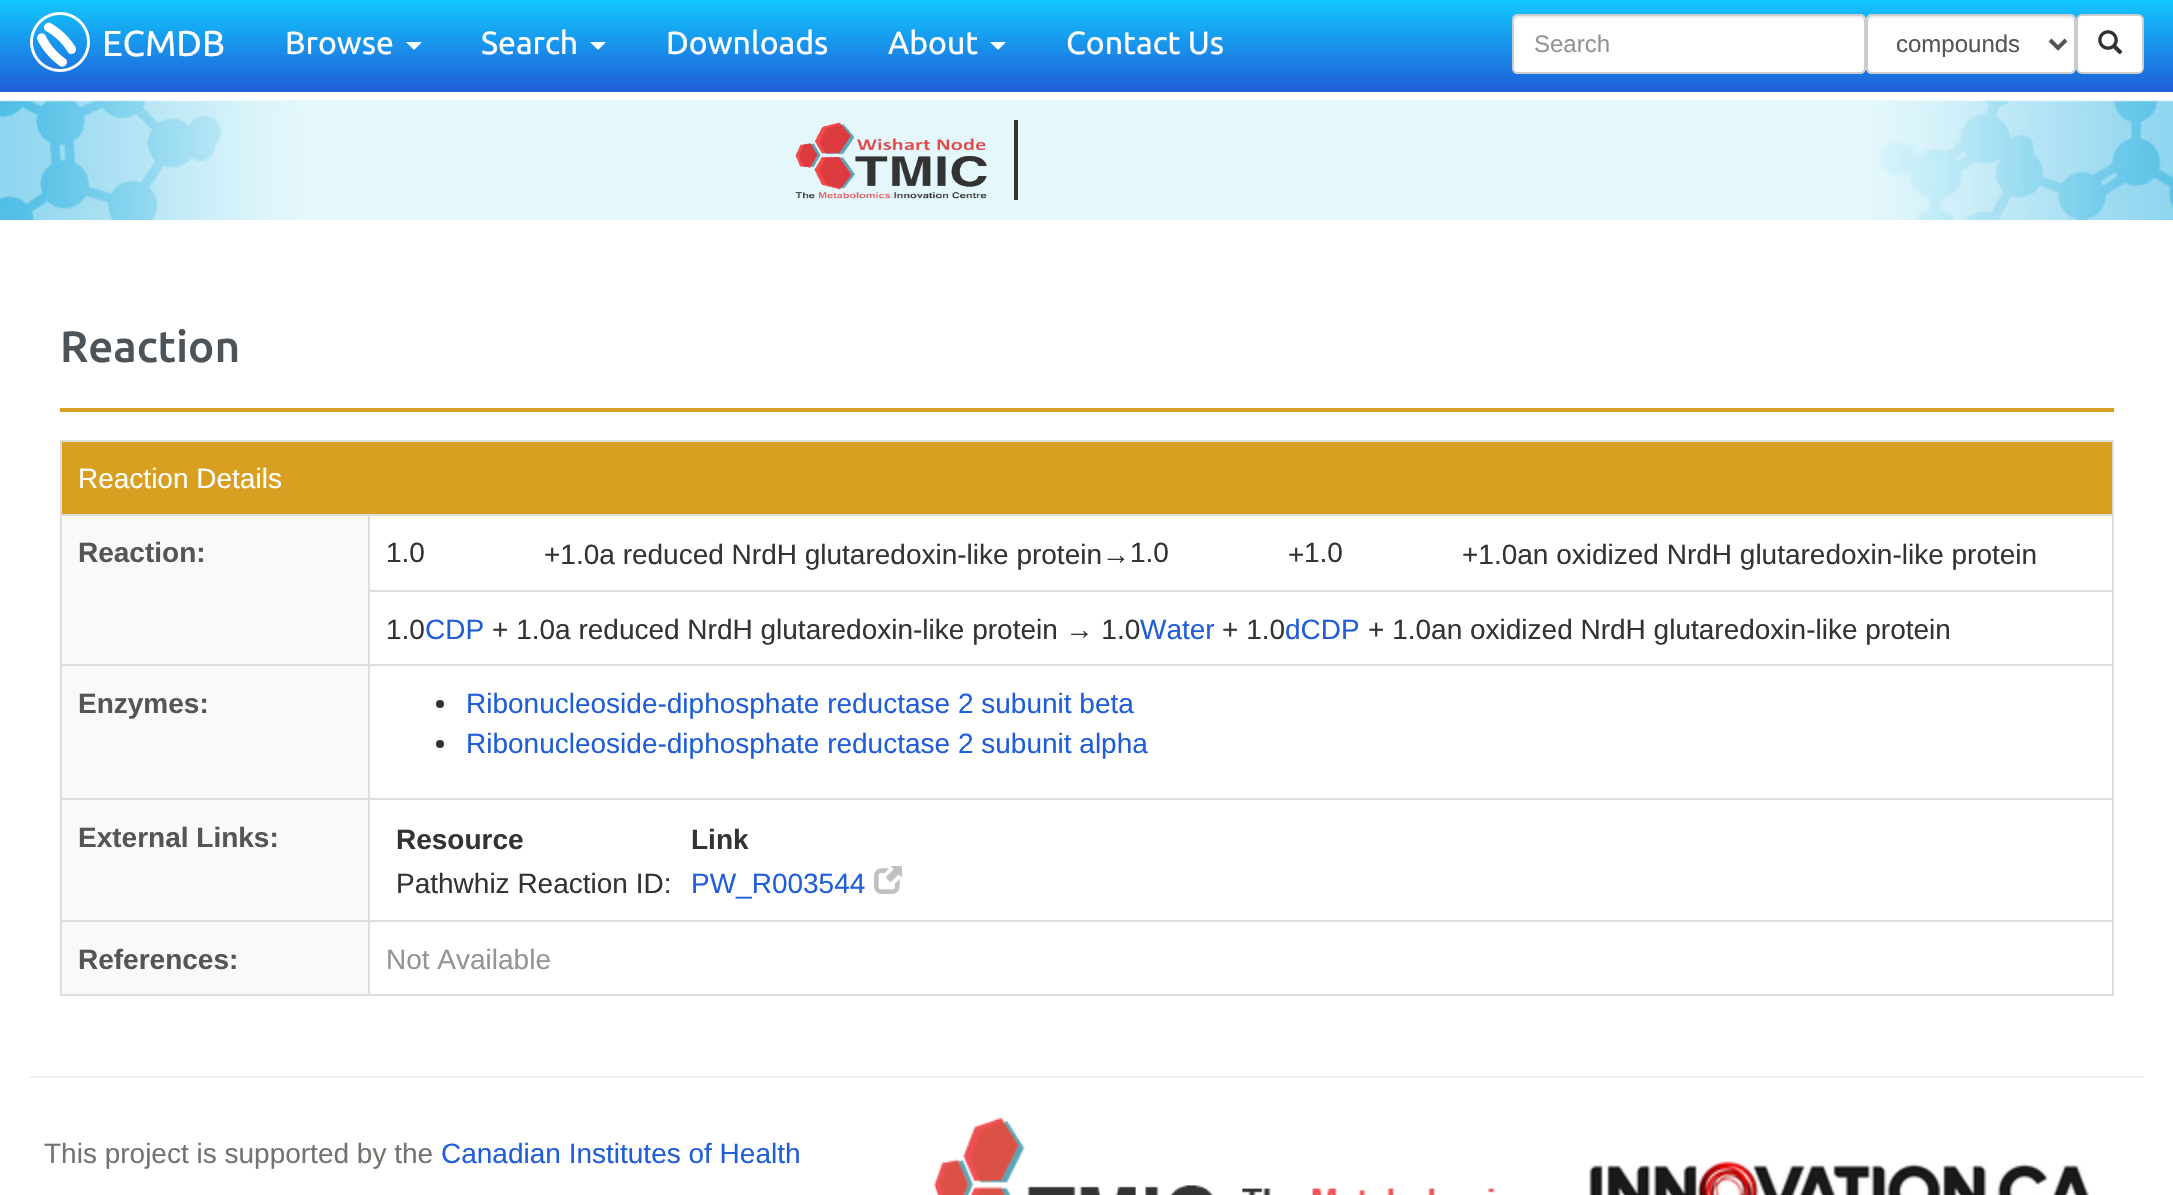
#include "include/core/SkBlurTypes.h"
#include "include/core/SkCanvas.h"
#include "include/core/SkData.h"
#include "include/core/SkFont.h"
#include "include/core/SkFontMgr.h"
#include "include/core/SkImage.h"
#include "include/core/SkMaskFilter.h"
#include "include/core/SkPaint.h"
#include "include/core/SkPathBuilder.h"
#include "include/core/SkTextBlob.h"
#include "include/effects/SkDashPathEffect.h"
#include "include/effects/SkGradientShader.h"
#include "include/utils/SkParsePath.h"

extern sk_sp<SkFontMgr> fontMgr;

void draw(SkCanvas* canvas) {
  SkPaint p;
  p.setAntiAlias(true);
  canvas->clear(SK_ColorWHITE);
  {
    const SkColor colors[] = {SkColorSetRGB(17, 200, 254), SkColorSetRGB(32, 93, 216)};
    const float stops[] = {0, 1};
    const SkPoint ends[] = {{1087, 0}, {1087, 92}};
    p.setShader(SkGradientShader::MakeLinear(ends, colors, stops, 2, SkTileMode::kClamp));
    p.setAlpha(255);
  }
  canvas->drawRect(SkRect::MakeLTRB(0, 0, 2173, 92), p);
  canvas->drawImageRect(SkImages::DeferredFromEncodedData(SkData::MakeFromFileName("images/1.png")), SkRect::MakeLTRB(30, 12, 90, 72), SkSamplingOptions());
  p.setShader(nullptr);
  p.setColor(SK_ColorWHITE);
  canvas->drawPath(SkPathBuilder().moveTo(406, 42).lineTo(422, 42).lineTo(414, 50).close().detach(), p);
  canvas->drawPath(SkPathBuilder().moveTo(590, 42).lineTo(606, 42).lineTo(598, 50).close().detach(), p);
  canvas->drawPath(SkPathBuilder().moveTo(990, 42).lineTo(1006, 42).lineTo(998, 50).close().detach(), p);
  canvas->drawRoundRect(SkRect::MakeLTRB(1512, 14, 1866, 74), 6, 6, p);
  p.setColor(SkColorSetRGB(236, 236, 236));
  canvas->drawPath(SkPathBuilder().moveTo(1518, 18).lineTo(1860, 18).cubicTo(1862, 18, 1864, 20, 1864, 22).cubicTo(1864, 19, 1864, 16, 1860, 16).lineTo(1517, 16).cubicTo(1514, 17, 1514, 19, 1514, 22).cubicTo(1514, 20, 1516, 18, 1518, 18).close().detach(), p);
  p.setStyle(SkPaint::kStroke_Style);
  p.setStrokeWidth(2);
  p.setColor(SkColorSetRGB(204, 204, 204));
  canvas->drawRoundRect(SkRect::MakeLTRB(1513, 15, 1865, 73), 5, 5, p);
  p.setStyle(SkPaint::kFill_Style);
  p.setColor(SK_ColorWHITE);
  canvas->drawRoundRect(SkRect::MakeLTRB(1866, 14, 2076, 74), 6, 6, p);
  p.setColor(SkColorSetRGB(236, 236, 236));
  canvas->drawPath(SkPathBuilder().moveTo(1872, 18).lineTo(2070, 18).cubicTo(2072, 18, 2074, 20, 2074, 22).cubicTo(2074, 19, 2074, 17, 2071, 16).lineTo(1872, 16).cubicTo(1868, 16, 1868, 19, 1868, 22).cubicTo(1868, 20, 1870, 18, 1872, 18).close().detach(), p);
  p.setStyle(SkPaint::kStroke_Style);
  p.setColor(SkColorSetRGB(204, 204, 204));
  canvas->drawRoundRect(SkRect::MakeLTRB(1867, 15, 2075, 73), 5, 5, p);
  p.setStrokeWidth(4);
  p.setColor(SkColorSetRGB(85, 85, 85));
  canvas->drawPath(SkPathBuilder().moveTo(2050, 40).lineTo(2058, 48).lineTo(2066, 40).detach(), p);
  p.setStyle(SkPaint::kFill_Style);
  p.setColor(SK_ColorWHITE);
  canvas->drawRoundRect(SkRect::MakeLTRB(2077, 15, 2143, 73), 5, 5, p);
  p.setStyle(SkPaint::kStroke_Style);
  p.setStrokeWidth(2);
  p.setColor(SkColorSetRGB(204, 204, 204));
  canvas->drawRoundRect(SkRect::MakeLTRB(2077, 15, 2143, 73), 5, 5, p);
  canvas->drawImageRect(SkImages::DeferredFromEncodedData(SkData::MakeFromFileName("images/2.png")), SkRect::MakeLTRB(2098, 30, 2123, 55), SkSamplingOptions());
  p.setStyle(SkPaint::kFill_Style);
  p.setColor(SkColorSetRGB(228, 248, 252));
  canvas->drawRect(SkRect::MakeLTRB(528, 100, 1646, 220), p);
  canvas->drawImageRect(SkImages::DeferredFromEncodedData(SkData::MakeFromFileName("images/3.png")), SkRect::MakeLTRB(0, 100, 2173, 220), SkSamplingOptions());
  canvas->drawImageRect(SkImages::DeferredFromEncodedData(SkData::MakeFromFileName("images/4.png")), SkRect::MakeLTRB(795, 122, 987, 199), SkSamplingOptions());
  p.setColor(SkColorSetRGB(52, 52, 51));
  canvas->drawRect(SkRect::MakeLTRB(1014, 120, 1018, 200), p);
  p.setColor(SkColorSetRGB(216, 159, 32));
  canvas->drawRect(SkRect::MakeLTRB(60, 408, 2114, 412), p);
  p.setColor(SkColorSetRGB(221, 221, 221));
  canvas->drawRect(SkRect::MakeLTRB(60, 440, 2114, 442), p);
  canvas->drawRect(SkRect::MakeLTRB(2112, 440, 2114, 996), p);
  canvas->drawRect(SkRect::MakeLTRB(60, 994, 2114, 996), p);
  canvas->drawRect(SkRect::MakeLTRB(60, 440, 62, 996), p);
  p.setColor(SkColorSetRGB(216, 159, 32));
  canvas->drawRect(SkRect::MakeLTRB(62, 442, 2112, 514), p);
  p.setColor(SkColorSetRGB(249, 249, 249));
  canvas->drawRect(SkRect::MakeLTRB(62, 516, 368, 664), p);
  p.setColor(SkColorSetRGB(221, 221, 221));
  canvas->drawRect(SkRect::MakeLTRB(368, 514, 2114, 516), p);
  canvas->drawRect(SkRect::MakeLTRB(368, 590, 2114, 592), p);
  canvas->drawRect(SkRect::MakeLTRB(368, 664, 2114, 666), p);
  canvas->drawRect(SkRect::MakeLTRB(368, 798, 2114, 800), p);
  canvas->drawRect(SkRect::MakeLTRB(368, 920, 2114, 922), p);
  canvas->drawRect(SkRect::MakeLTRB(368, 920, 370, 996), p);
  canvas->drawRect(SkRect::MakeLTRB(60, 920, 370, 922), p);
  canvas->drawRect(SkRect::MakeLTRB(368, 798, 370, 922), p);
  canvas->drawRect(SkRect::MakeLTRB(60, 798, 370, 800), p);
  canvas->drawRect(SkRect::MakeLTRB(368, 664, 370, 800), p);
  canvas->drawRect(SkRect::MakeLTRB(60, 664, 370, 666), p);
  canvas->drawRect(SkRect::MakeLTRB(368, 590, 370, 666), p);
  canvas->drawRect(SkRect::MakeLTRB(368, 514, 370, 592), p);
  canvas->drawRect(SkRect::MakeLTRB(60, 514, 370, 516), p);
  p.setColor(SkColorSetRGB(249, 249, 249));
  canvas->drawRect(SkRect::MakeLTRB(62, 666, 368, 798), p);
  p.setColor(SkColorSetRGB(51, 51, 51));
  canvas->drawCircle(440, 704, 4, p);
  canvas->drawCircle(440, 744, 4, p);
  p.setColor(SkColorSetRGB(249, 249, 249));
  canvas->drawRect(SkRect::MakeLTRB(62, 800, 368, 920), p);
  canvas->drawImageRect(SkImages::DeferredFromEncodedData(SkData::MakeFromFileName("images/5.png")), SkRect::MakeLTRB(874, 866, 902, 894), SkSamplingOptions());
  canvas->drawRect(SkRect::MakeLTRB(62, 922, 368, 994), p);
  p.setColor(SkColorSetRGB(238, 238, 238));
  canvas->drawRect(SkRect::MakeLTRB(30, 1076, 2144, 1078), p);
  canvas->drawImageRect(SkImages::DeferredFromEncodedData(SkData::MakeFromFileName("images/6.png")), SkRect::MakeLTRB(934, 1118, 1495, 1195), SkSamplingOptions());
  canvas->drawImageRect(SkImages::DeferredFromEncodedData(SkData::MakeFromFileName("images/7.png")), SkRect::MakeLTRB(1589, 1161, 2089, 1195), SkSamplingOptions());
  SkFont font1(fontMgr->matchFamilyStyle("Ubuntu", SkFontStyle::Normal()), 36);
  font1.setSubpixel(true);
  p.setColor(SK_ColorWHITE);
  canvas->drawString("ECMDB", 102, 56, font1, p);
  SkFont font2(fontMgr->matchFamilyStyle("Ubuntu", SkFontStyle::Normal()), 32);
  font2.setSubpixel(true);
  canvas->drawString("Browse", 285, 54, font2, p);
  canvas->drawString("Search", 481, 54, font2, p);
  canvas->drawString("Downloads", 666, 54, font2, p);
  canvas->drawString("About", 888, 54, font2, p);
  canvas->drawString("Contact Us", 1066, 54, font2, p);
  SkFont font3(fontMgr->matchFamilyStyle("Liberation Sans", SkFontStyle::Normal()), 24);
  font3.setSubpixel(true);
  p.setColor(SkColorSetRGB(148, 148, 148));
  canvas->drawString("Search", 1534, 52, font3, p);
  p.setColor(SkColorSetRGB(85, 85, 85));
  canvas->drawString("compounds", 1896, 52, font3, p);
  SkFont font4(fontMgr->matchFamilyStyle("Ubuntu", SkFontStyle(500, SkFontStyle::kNormal_Width, SkFontStyle::kUpright_Slant)), 44);
  font4.setSubpixel(true);
  p.setColor(SkColorSetRGB(76, 84, 90));
  canvas->drawString("Reaction", 60, 362, font4, p);
  SkFont font5(fontMgr->matchFamilyStyle("Liberation Sans", SkFontStyle::Normal()), 28);
  font5.setSubpixel(true);
  p.setColor(SK_ColorWHITE);
  canvas->drawString("Reaction Details", 78, 488, font5, p);
  SkFont font6(fontMgr->matchFamilyStyle("Liberation Sans", SkFontStyle::Bold()), 28);
  font6.setSubpixel(true);
  p.setColor(SkColorSetRGB(85, 85, 85));
  canvas->drawString("Reaction:", 78, 562, font6, p);
  p.setColor(SkColorSetRGB(51, 51, 51));
  canvas->drawString("1.0", 386, 562, font5, p);
  canvas->drawString("+1.0a reduced NrdH glutaredoxin-like protein→", 544, 564, font5, p);
  canvas->drawString("1.0", 1130, 562, font5, p);
  canvas->drawString("+", 1288, 564, font5, p);
  canvas->drawString("1.0", 1304, 562, font5, p);
  canvas->drawString("+1.0an oxidized NrdH glutaredoxin-like protein", 1462, 564, font5, p);
  canvas->drawString("1.0", 386, 639, font5, p);
  p.setColor(SkColorSetRGB(32, 93, 216));
  canvas->drawString("CDP", 425, 639, font5, p);
  p.setColor(SkColorSetRGB(51, 51, 51));
  canvas->drawString("+ 1.0a reduced NrdH glutaredoxin-like protein → 1.0", 492, 639, font5, p);
  p.setColor(SkColorSetRGB(32, 93, 216));
  canvas->drawString("Water", 1140, 639, font5, p);
  p.setColor(SkColorSetRGB(51, 51, 51));
  canvas->drawString("+ 1.0", 1222, 639, font5, p);
  p.setColor(SkColorSetRGB(32, 93, 216));
  canvas->drawString("dCDP", 1285, 639, font5, p);
  p.setColor(SkColorSetRGB(51, 51, 51));
  canvas->drawString("+ 1.0an oxidized NrdH glutaredoxin-like protein", 1368, 639, font5, p);
  p.setColor(SkColorSetRGB(85, 85, 85));
  canvas->drawString("Enzymes:", 78, 713, font6, p);
  p.setColor(SkColorSetRGB(32, 93, 216));
  canvas->drawString("Ribonucleoside-diphosphate reductase 2 subunit beta", 466, 713, font5, p);
  canvas->drawString("Ribonucleoside-diphosphate reductase 2 subunit alpha", 466, 753, font5, p);
  p.setColor(SkColorSetRGB(85, 85, 85));
  canvas->drawString("External Links:", 78, 847, font6, p);
  p.setColor(SkColorSetRGB(51, 51, 51));
  canvas->drawString("Resource", 396, 849, font6, p);
  canvas->drawString("Link", 691, 849, font6, p);
  canvas->drawString("Pathwhiz Reaction ID:", 396, 893, font5, p);
  p.setColor(SkColorSetRGB(32, 93, 216));
  canvas->drawString("PW_R003544", 691, 893, font5, p);
  p.setColor(SkColorSetRGB(85, 85, 85));
  canvas->drawString("References:", 78, 969, font6, p);
  p.setColor(SkColorSetRGB(148, 148, 148));
  canvas->drawString("Not Available", 386, 969, font5, p);
  p.setColor(SkColorSetRGB(116, 115, 110));
  canvas->drawString("This project is supported by the", 44, 1163, font5, p);
  p.setColor(SkColorSetRGB(32, 93, 216));
  canvas->drawString("Canadian Institutes of Health", 441, 1163, font5, p);
}
